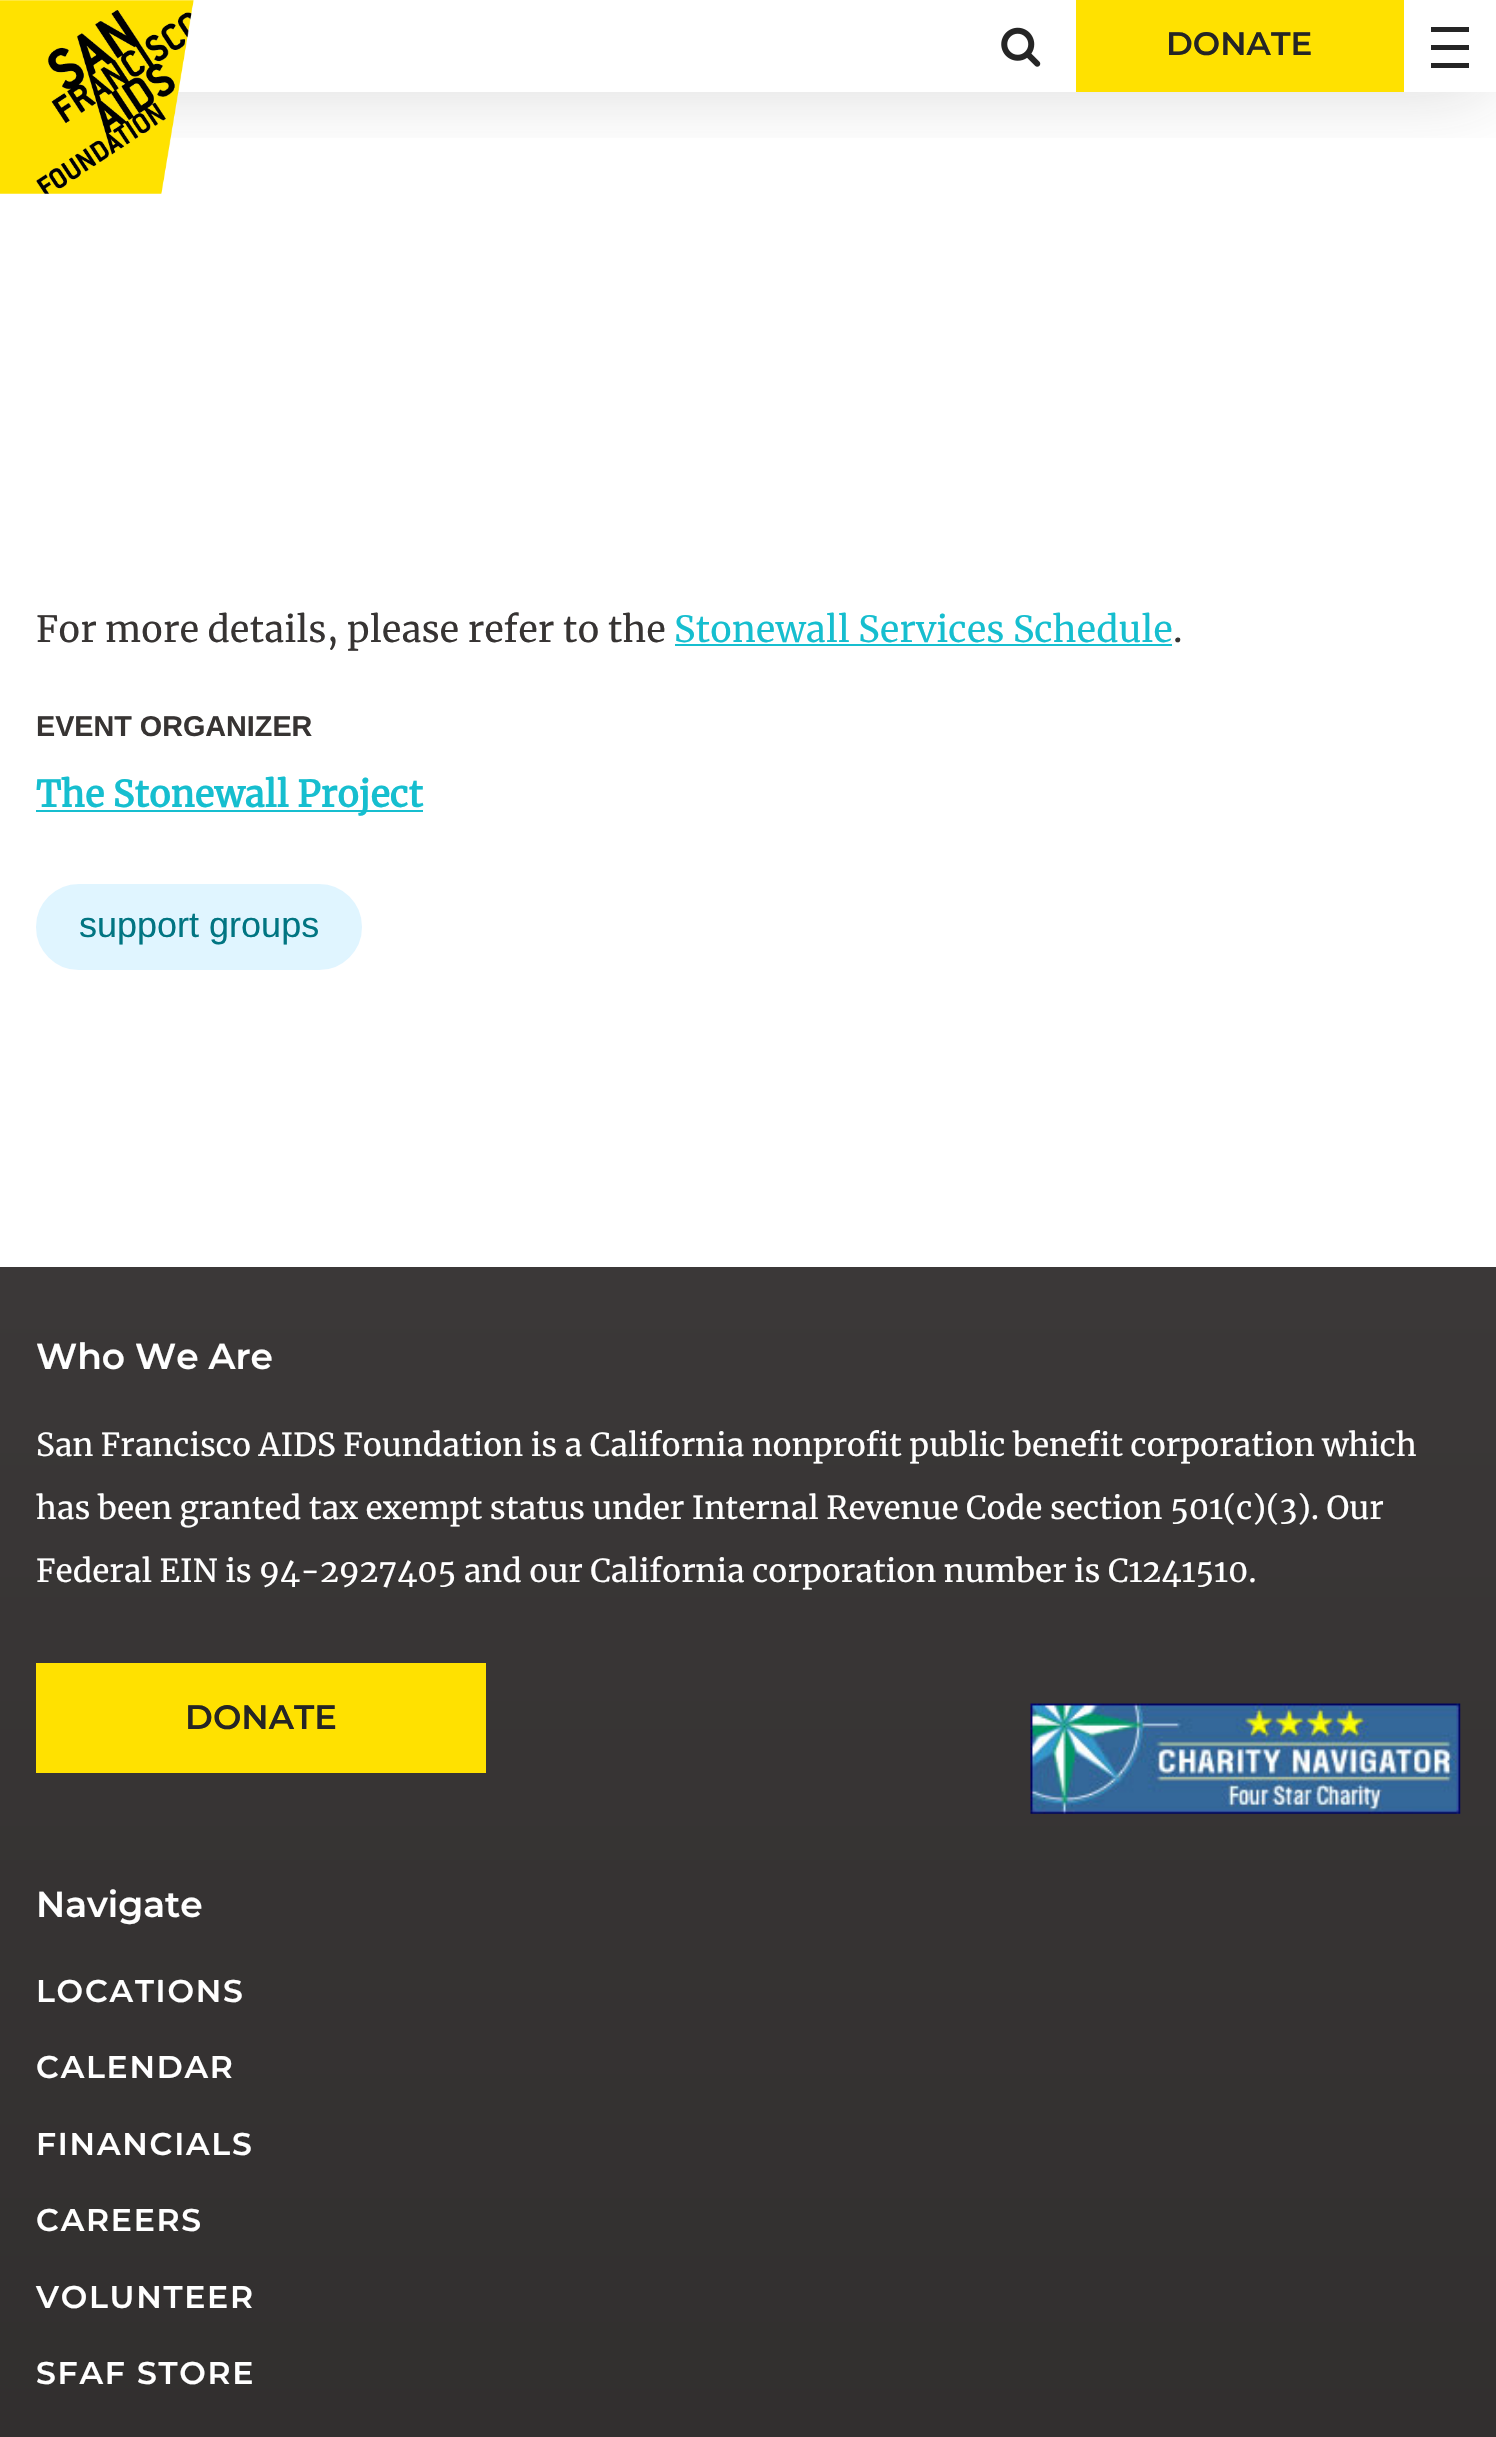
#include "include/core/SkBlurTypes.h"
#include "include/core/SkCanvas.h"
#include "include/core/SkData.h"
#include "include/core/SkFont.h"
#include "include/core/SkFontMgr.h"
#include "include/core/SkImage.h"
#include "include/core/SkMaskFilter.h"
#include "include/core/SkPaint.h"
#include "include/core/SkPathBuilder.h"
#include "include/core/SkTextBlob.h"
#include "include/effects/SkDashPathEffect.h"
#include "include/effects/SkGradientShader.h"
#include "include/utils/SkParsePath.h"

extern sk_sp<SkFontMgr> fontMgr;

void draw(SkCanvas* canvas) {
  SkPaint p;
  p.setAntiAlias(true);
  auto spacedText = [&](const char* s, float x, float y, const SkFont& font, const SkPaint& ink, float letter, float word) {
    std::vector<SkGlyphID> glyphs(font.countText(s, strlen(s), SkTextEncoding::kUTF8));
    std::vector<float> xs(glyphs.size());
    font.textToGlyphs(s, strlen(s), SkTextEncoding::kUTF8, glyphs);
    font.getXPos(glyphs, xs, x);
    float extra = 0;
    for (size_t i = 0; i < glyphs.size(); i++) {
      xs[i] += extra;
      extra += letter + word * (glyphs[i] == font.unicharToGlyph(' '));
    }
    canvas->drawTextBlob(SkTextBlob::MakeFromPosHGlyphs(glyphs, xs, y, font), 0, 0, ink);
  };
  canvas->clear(SK_ColorWHITE);
  canvas->save();
  canvas->clipRect(SkRect::MakeLTRB(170, 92, 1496, 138));
  p.setColor(SkColorSetARGB(46, 37, 37, 37));
  p.setMaskFilter(SkMaskFilter::MakeBlur(kNormal_SkBlurStyle, 39.5f));
  canvas->drawRect(SkRect::MakeLTRB(5, 7, 1492, 90), p);
  p.setMaskFilter(nullptr);
  canvas->restore();
  canvas->drawImageRect(SkImages::DeferredFromEncodedData(SkData::MakeFromFileName("images/1.png")), SkRect::MakeLTRB(0, 0, 194, 194), SkSamplingOptions());
  canvas->drawImageRect(SkImages::DeferredFromEncodedData(SkData::MakeFromFileName("images/2.png")), SkRect::MakeLTRB(1001, 27, 1041, 67), SkSamplingOptions());
  p.setColor(SkColorSetRGB(255, 225, 0));
  canvas->drawRect(SkRect::MakeLTRB(1076, 0, 1404, 92), p);
  p.setColor(SkColorSetRGB(37, 37, 37));
  canvas->drawRect(SkRect::MakeLTRB(1431, 27, 1469, 32), p);
  canvas->drawRect(SkRect::MakeLTRB(1431, 45, 1469, 50), p);
  canvas->drawRect(SkRect::MakeLTRB(1431, 63, 1469, 68), p);
  p.setColor(SkColorSetRGB(22, 190, 207));
  canvas->drawRect(SkRect::MakeLTRB(675, 644, 1172, 646), p);
  canvas->drawRect(SkRect::MakeLTRB(36, 810, 423, 812), p);
  p.setColor(SkColorSetRGB(224, 245, 255));
  canvas->drawRoundRect(SkRect::MakeLTRB(37, 885, 361, 969), 42, 42, p);
  p.setStyle(SkPaint::kStroke_Style);
  p.setStrokeWidth(2);
  canvas->drawRoundRect(SkRect::MakeLTRB(37, 885, 361, 969), 42, 42, p);
  p.setStyle(SkPaint::kFill_Style);
  {
    const SkColor colors[] = {SkColorSetRGB(59, 56, 56), SkColorSetRGB(42, 40, 39)};
    const float stops[] = {0, 1};
    const SkPoint ends[] = {{748, 1267}, {748, 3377}};
    p.setShader(SkGradientShader::MakeLinear(ends, colors, stops, 2, SkTileMode::kClamp));
    p.setAlpha(255);
  }
  canvas->drawRect(SkRect::MakeLTRB(0, 1267, 1496, 2437), p);
  p.setShader(nullptr);
  p.setColor(SkColorSetRGB(255, 225, 0));
  canvas->drawRect(SkRect::MakeLTRB(36, 1663, 486, 1773), p);
  canvas->drawImageRect(SkImages::DeferredFromEncodedData(SkData::MakeFromFileName("images/3.png")), SkRect::MakeLTRB(1030, 1703, 1461, 1814), SkSamplingOptions());
  SkFont font1(fontMgr->matchFamilyStyle("Montserrat", SkFontStyle(100, SkFontStyle::kNormal_Width, SkFontStyle::kUpright_Slant)), 32.5f);
  font1.setSubpixel(true);
  p.setColor(SkColorSetRGB(37, 37, 37));
  canvas->drawString("DONATE", 1166, 55, font1, p);
  SkFont font2(fontMgr->matchFamilyStyle("Merriweather", SkFontStyle::Normal()), 36);
  font2.setSubpixel(true);
  p.setColor(SkColorSetRGB(55, 52, 51));
  canvas->drawString("For more details, please refer to the", 36, 642, font2, p);
  p.setColor(SkColorSetRGB(22, 190, 207));
  canvas->drawString("Stonewall Services Schedule", 674, 642, font2, p);
  p.setColor(SkColorSetRGB(55, 52, 51));
  canvas->drawString(".", 1173, 642, font2, p);
  SkFont font3(fontMgr->matchFamilyStyle("Liberation Sans", SkFontStyle::Bold()), 28.75f);
  font3.setSubpixel(true);
  canvas->drawString("EVENT ORGANIZER", 36, 736, font3, p);
  SkFont font4(fontMgr->matchFamilyStyle("Merriweather", SkFontStyle::Bold()), 36);
  font4.setSubpixel(true);
  p.setColor(SkColorSetRGB(22, 190, 207));
  canvas->drawString("The Stonewall Project", 36, 807, font4, p);
  SkFont font5(fontMgr->matchFamilyStyle("Liberation Sans", SkFontStyle::Normal()), 36);
  font5.setSubpixel(true);
  p.setColor(SkColorSetRGB(1, 117, 130));
  canvas->drawString("support groups", 79, 937, font5, p);
  SkFont font6(fontMgr->matchFamilyStyle("Montserrat", SkFontStyle(100, SkFontStyle::kNormal_Width, SkFontStyle::kUpright_Slant)), 36);
  font6.setSubpixel(true);
  p.setColor(SK_ColorWHITE);
  canvas->drawString("Who We Are", 36, 1369, font6, p);
  SkFont font7(fontMgr->matchFamilyStyle("Merriweather", SkFontStyle::Normal()), 31.5f);
  font7.setSubpixel(true);
  canvas->drawString("San Francisco AIDS Foundation is a California nonprofit public benefit corporation which", 36, 1456, font7, p);
  canvas->drawString("has been granted tax exempt status under Internal Revenue Code section 501(c)(3). Our", 36, 1519, font7, p);
  canvas->drawString("Federal EIN is 94-2927405 and our California corporation number is C1241510.", 36, 1582, font7, p);
  SkFont font8(fontMgr->matchFamilyStyle("Montserrat", SkFontStyle(100, SkFontStyle::kNormal_Width, SkFontStyle::kUpright_Slant)), 33.75f);
  font8.setSubpixel(true);
  p.setColor(SkColorSetRGB(37, 37, 37));
  canvas->drawString("DONATE", 185, 1729, font8, p);
  p.setColor(SK_ColorWHITE);
  canvas->drawString("Navigate", 36, 1917, font6, p);
  SkFont font9(fontMgr->matchFamilyStyle("Montserrat", SkFontStyle(100, SkFontStyle::kNormal_Width, SkFontStyle::kUpright_Slant)), 31.5f);
  font9.setSubpixel(true);
  spacedText("LOCATIONS", 36, 2002, font9, p, 1.75f, 0);
  spacedText("CALENDAR", 36, 2078, font9, p, 1.75f, 0);
  spacedText("FINANCIALS", 36, 2155, font9, p, 1.75f, 0);
  spacedText("CAREERS", 36, 2231, font9, p, 1.75f, 0);
  spacedText("VOLUNTEER", 36, 2308, font9, p, 1.75f, 0);
  spacedText("SFAF STORE", 36, 2384, font9, p, 1.75f, 0);
}
